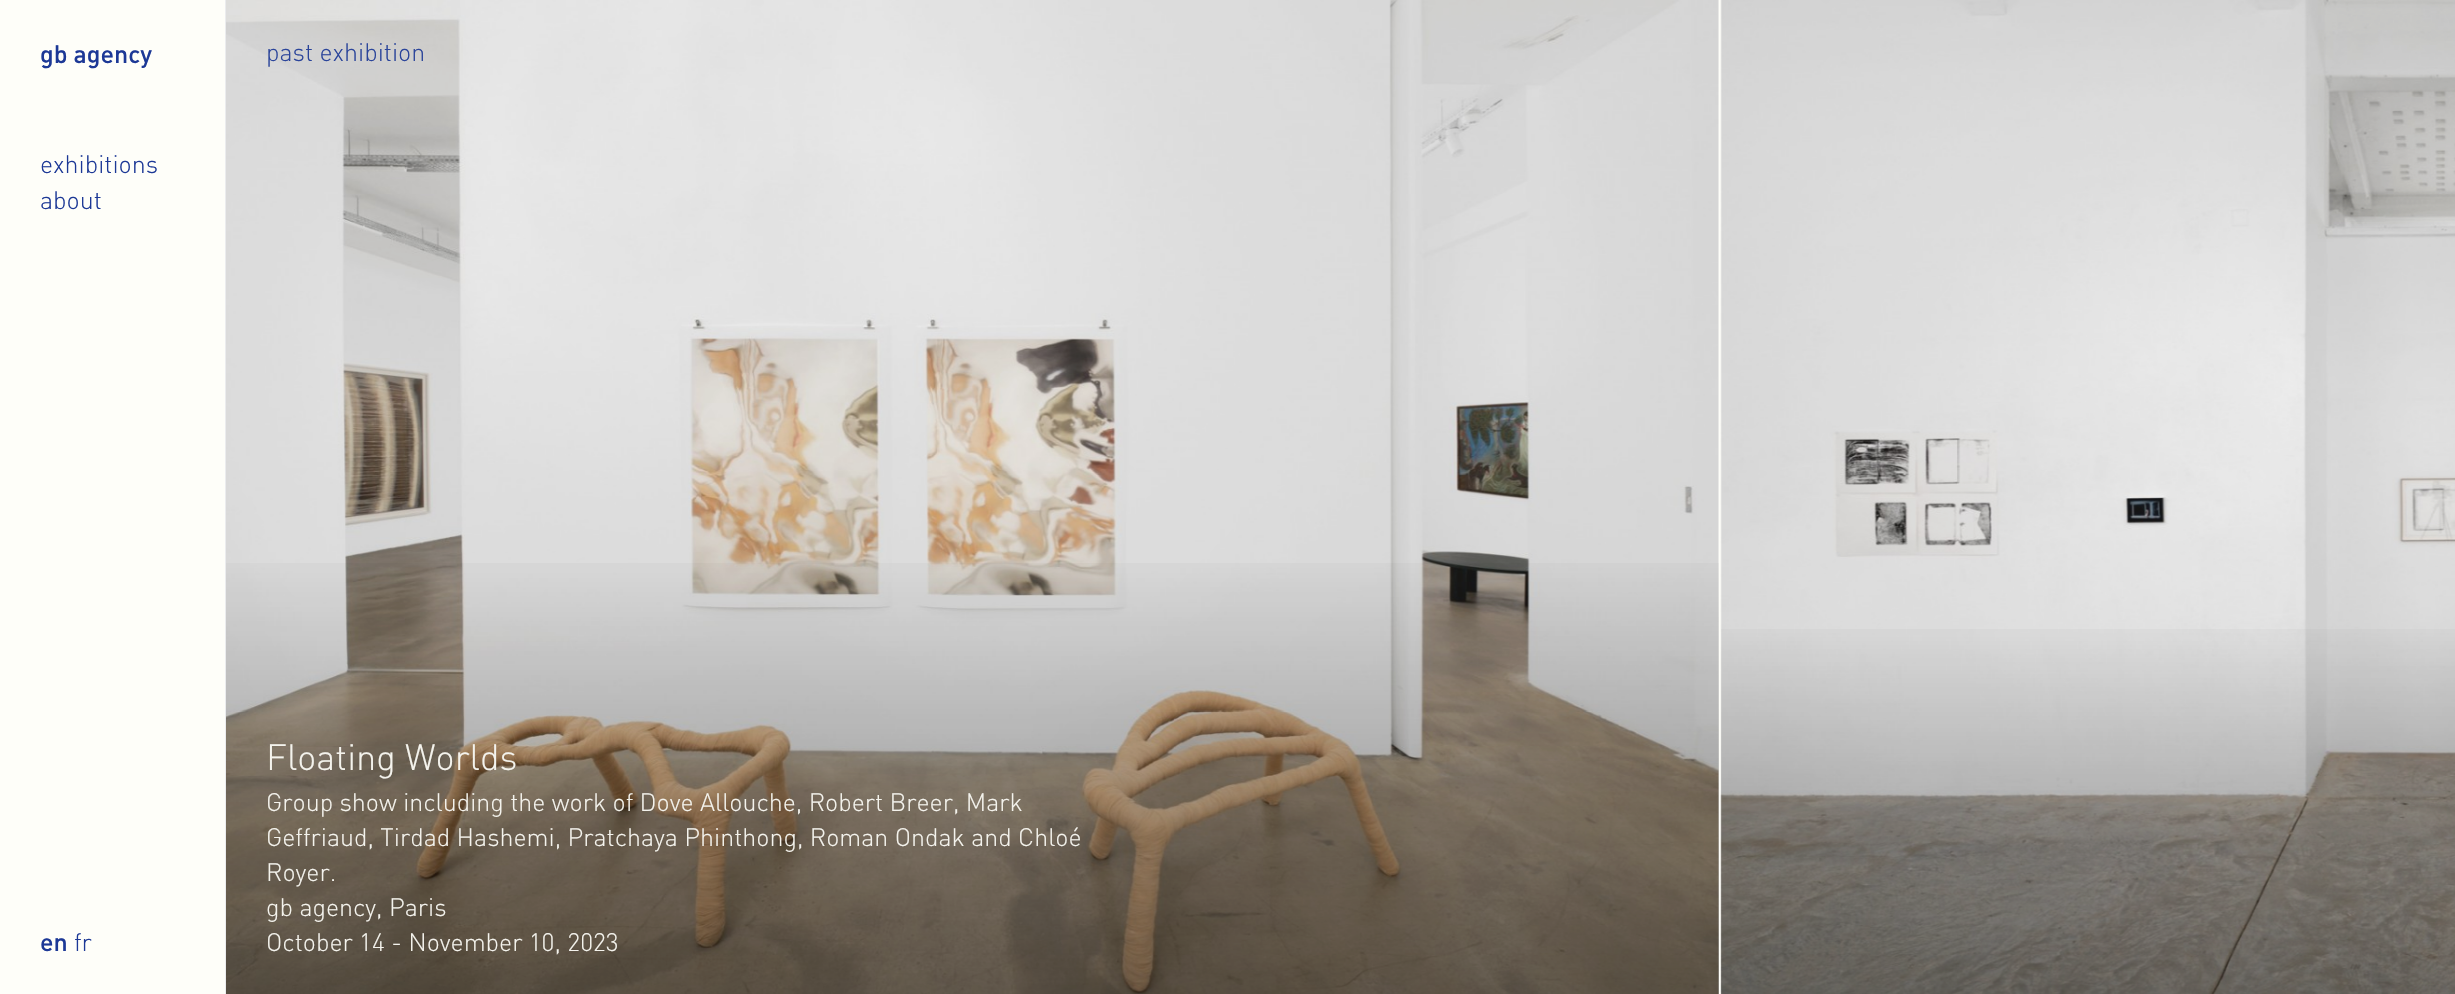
#include "include/core/SkBlurTypes.h"
#include "include/core/SkCanvas.h"
#include "include/core/SkData.h"
#include "include/core/SkFont.h"
#include "include/core/SkFontMgr.h"
#include "include/core/SkImage.h"
#include "include/core/SkMaskFilter.h"
#include "include/core/SkPaint.h"
#include "include/core/SkPathBuilder.h"
#include "include/core/SkTextBlob.h"
#include "include/effects/SkDashPathEffect.h"
#include "include/effects/SkGradientShader.h"
#include "include/utils/SkParsePath.h"

extern sk_sp<SkFontMgr> fontMgr;

void draw(SkCanvas* canvas) {
  SkPaint p;
  p.setAntiAlias(true);
  canvas->clear(SkColorSetRGB(254, 254, 249));
  p.setColor(SkColorSetRGB(235, 236, 238));
  canvas->drawRect(SkRect::MakeLTRB(225, 0, 226, 994), p);
  canvas->drawImageRect(SkImages::DeferredFromEncodedData(SkData::MakeFromFileName("images/1.png")), SkRect::MakeLTRB(226, 0, 1719, 994), SkSamplingOptions());
  {
    const SkColor colors[] = {SkColorSetARGB(0, 0, 0, 0), SkColorSetARGB(94, 0, 0, 0)};
    const float stops[] = {0, 1};
    const SkPoint ends[] = {{972, 536}, {972, 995}};
    p.setShader(SkGradientShader::MakeLinear(ends, colors, stops, 2, SkTileMode::kClamp));
    p.setAlpha(255);
  }
  canvas->drawRect(SkRect::MakeLTRB(226, 563, 1719, 994), p);
  canvas->drawImageRect(SkImages::DeferredFromEncodedData(SkData::MakeFromFileName("images/2.png")), SkRect::MakeLTRB(1720, 0, 2455, 994), SkSamplingOptions());
  {
    const SkColor colors[] = {SkColorSetARGB(0, 0, 0, 0), SkColorSetARGB(94, 0, 0, 0)};
    const float stops[] = {0, 1};
    const SkPoint ends[] = {{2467, 606}, {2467, 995}};
    p.setShader(SkGradientShader::MakeLinear(ends, colors, stops, 2, SkTileMode::kClamp));
    p.setAlpha(255);
  }
  canvas->drawRect(SkRect::MakeLTRB(1721, 629, 2455, 994), p);
  SkFont font1(fontMgr->matchFamilyStyle("DIN", SkFontStyle(500, SkFontStyle::kNormal_Width, SkFontStyle::kUpright_Slant)), 25);
  font1.setSubpixel(true);
  p.setShader(nullptr);
  p.setColor(SkColorSetRGB(28, 56, 150));
  canvas->drawString("gb agency", 40, 63, font1, p);
  SkFont font2(fontMgr->matchFamilyStyle("DIN", SkFontStyle(300, SkFontStyle::kNormal_Width, SkFontStyle::kUpright_Slant)), 25);
  font2.setSubpixel(true);
  canvas->drawString("exhibitions", 40, 173, font2, p);
  canvas->drawString("about", 40, 209, font2, p);
  canvas->drawString("en", 40, 951, font1, p);
  canvas->drawString("fr", 74, 951, font2, p);
  p.setColor(SkColorSetRGB(42, 68, 154));
  canvas->drawString("past exhibition", 266, 61, font2, p);
  SkFont font3(fontMgr->matchFamilyStyle("DIN", SkFontStyle(300, SkFontStyle::kNormal_Width, SkFontStyle::kUpright_Slant)), 36.25f);
  font3.setSubpixel(true);
  p.setColor(SkColorSetRGB(244, 243, 237));
  canvas->drawString("Floating Worlds", 266, 770, font3, p);
  canvas->drawString("Group show including the work of Dove Allouche, Robert Breer, Mark", 266, 811, font2, p);
  canvas->drawString("Geffriaud, Tirdad Hashemi, Pratchaya Phinthong, Roman Ondak and Chloé", 266, 846, font2, p);
  canvas->drawString("Royer.", 266, 881, font2, p);
  canvas->drawString("gb agency, Paris", 266, 916, font2, p);
  canvas->drawString("October 14 - November 10, 2023", 266, 951, font2, p);
}
